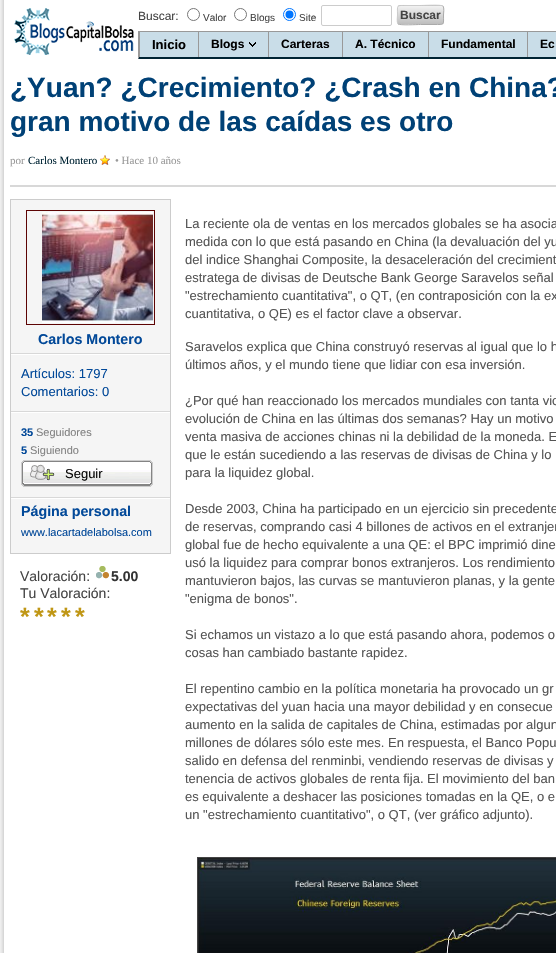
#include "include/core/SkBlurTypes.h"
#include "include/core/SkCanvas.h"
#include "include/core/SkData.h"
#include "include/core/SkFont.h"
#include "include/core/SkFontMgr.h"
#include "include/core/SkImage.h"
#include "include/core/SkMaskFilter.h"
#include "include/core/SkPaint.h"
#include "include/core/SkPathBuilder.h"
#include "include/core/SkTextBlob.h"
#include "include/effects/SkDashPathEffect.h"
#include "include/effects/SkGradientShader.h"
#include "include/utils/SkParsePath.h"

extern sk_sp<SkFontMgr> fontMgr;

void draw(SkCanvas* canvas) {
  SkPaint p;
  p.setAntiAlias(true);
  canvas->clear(SK_ColorWHITE);
  canvas->drawImageRect(SkImages::DeferredFromEncodedData(SkData::MakeFromFileName("images/1.png")), SkRect::MakeLTRB(0, 0, 556, 953), SkSamplingOptions());
  canvas->drawImageRect(SkImages::DeferredFromEncodedData(SkData::MakeFromFileName("images/2.png")), SkRect::MakeLTRB(14, 8, 134, 55), SkSamplingOptions());
  p.setStyle(SkPaint::kStroke_Style);
  p.setStrokeWidth(1);
  p.setColor(SkColorSetRGB(118, 118, 118));
  canvas->drawCircle(193.5f, 14.5f, 6, p);
  canvas->drawCircle(240.5f, 14.5f, 6, p);
  p.setColor(SkColorSetRGB(0, 117, 255));
  canvas->drawCircle(289.5f, 14.5f, 6, p);
  p.setStyle(SkPaint::kFill_Style);
  canvas->drawCircle(289.5f, 14.5f, 4, p);
  p.setStyle(SkPaint::kStroke_Style);
  p.setColor(SkColorSetRGB(204, 204, 204));
  canvas->drawRoundRect(SkRect::MakeLTRB(321.5f, 5.5f, 391.5f, 25.5f), 1.5f, 1.5f, p);
  p.setStyle(SkPaint::kFill_Style);
  p.setColor(SkColorSetRGB(238, 238, 238));
  canvas->drawRoundRect(SkRect::MakeLTRB(397, 5, 444, 25), 3, 3, p);
  canvas->save();
  canvas->clipPath(SkPathBuilder().moveTo(400, 5).lineTo(441, 5).cubicTo(442.5f, 5, 444, 6.5f, 444, 8).lineTo(444, 22).cubicTo(444, 23.5f, 442.5f, 25, 441, 25).lineTo(400, 25).cubicTo(398.5f, 25, 397, 23.5f, 397, 22).lineTo(397, 8).cubicTo(397, 6.5f, 398.5f, 5, 400, 5).close().detach(), true);
  {
    const SkColor colors[] = {SkColorSetARGB(51, 255, 255, 255), SkColorSetARGB(51, 0, 0, 0)};
    const float stops[] = {0, 1};
    const SkPoint ends[] = {{421, -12}, {421, 6}};
    p.setShader(SkGradientShader::MakeLinear(ends, colors, stops, 2, SkTileMode::kClamp));
    p.setAlpha(255);
  }
  canvas->drawRect(SkRect::MakeLTRB(397, 5, 444, 6), p);
  {
    const SkColor colors[] = {SkColorSetARGB(51, 255, 255, 255), SkColorSetARGB(51, 0, 0, 0)};
    const float stops[] = {0, 1};
    const SkPoint ends[] = {{421, 6}, {421, 24}};
    p.setShader(SkGradientShader::MakeLinear(ends, colors, stops, 2, SkTileMode::kClamp));
    p.setAlpha(255);
  }
  canvas->drawRect(SkRect::MakeLTRB(397, 6, 444, 24), p);
  canvas->restore();
  p.setStyle(SkPaint::kStroke_Style);
  p.setShader(nullptr);
  p.setColor(SkColorSetRGB(170, 170, 170));
  canvas->drawPath(SkPathBuilder().moveTo(443, 6).cubicTo(444.5f, 8, 443.5f, 13, 443.5f, 15).cubicTo(443.5f, 25.5f, 445, 24.5f, 434, 24.5f).lineTo(420.5f, 24.5f).cubicTo(417, 24.5f, 400, 25.5f, 398, 24).detach(), p);
  p.setColor(SkColorSetRGB(204, 204, 204));
  canvas->drawPath(SkPathBuilder().moveTo(398, 24).cubicTo(396.5f, 22, 397.5f, 17, 397.5f, 15).cubicTo(397.5f, 4.5f, 396, 5.5f, 407, 5.5f).lineTo(420.5f, 5.5f).cubicTo(424, 5.5f, 441, 4.5f, 443, 6).detach(), p);
  p.setStyle(SkPaint::kFill_Style);
  p.setColor(SkColorSetRGB(201, 221, 232));
  canvas->drawRect(SkRect::MakeLTRB(140, 32, 556, 57), p);
  p.setColor(SkColorSetRGB(153, 153, 153));
  canvas->drawRect(SkRect::MakeLTRB(138, 31, 556, 32), p);
  p.setColor(SkColorSetRGB(0, 36, 52));
  canvas->drawPath(SkPathBuilder().moveTo(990, 59).lineTo(138, 59).lineTo(139, 57).lineTo(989, 57).close().detach(), p);
  p.setColor(SkColorSetRGB(153, 153, 153));
  canvas->drawPath(SkPathBuilder().moveTo(138, 59).lineTo(138, 31).lineTo(139, 32).lineTo(139, 57).close().detach(), p);
  canvas->drawRect(SkRect::MakeLTRB(139, 32, 140, 57), p);
  canvas->drawRect(SkRect::MakeLTRB(198, 32, 199, 57), p);
  canvas->drawImageRect(SkImages::DeferredFromEncodedData(SkData::MakeFromFileName("images/3.png")), SkRect::MakeLTRB(249, 42, 256, 47), SkSamplingOptions());
  canvas->drawRect(SkRect::MakeLTRB(268, 32, 269, 57), p);
  canvas->drawRect(SkRect::MakeLTRB(342, 32, 343, 57), p);
  canvas->drawRect(SkRect::MakeLTRB(428, 32, 429, 57), p);
  canvas->drawRect(SkRect::MakeLTRB(527, 32, 528, 57), p);
  p.setColor(SkColorSetRGB(216, 216, 216));
  canvas->drawRect(SkRect::MakeLTRB(10, 185, 556, 187), p);
  canvas->drawImageRect(SkImages::DeferredFromEncodedData(SkData::MakeFromFileName("images/4.png")), SkRect::MakeLTRB(100, 155, 110, 165), SkSamplingOptions());
  p.setColor(SkColorSetRGB(245, 245, 245));
  canvas->drawRect(SkRect::MakeLTRB(10.5f, 199.5f, 170.5f, 553.5f), p);
  p.setStyle(SkPaint::kStroke_Style);
  p.setColor(SkColorSetRGB(204, 204, 204));
  canvas->drawRect(SkRect::MakeLTRB(10.5f, 199.5f, 170.5f, 553.5f), p);
  p.setColor(SkColorSetRGB(93, 4, 4));
  canvas->drawRect(SkRect::MakeLTRB(26.5f, 210.5f, 154.5f, 324.5f), p);
  canvas->drawImageRect(SkImages::DeferredFromEncodedData(SkData::MakeFromFileName("images/5.png")), SkRect::MakeLTRB(42, 212, 153, 323), SkSamplingOptions());
  p.setStyle(SkPaint::kFill_Style);
  p.setColor(SkColorSetRGB(216, 216, 216));
  canvas->drawRect(SkRect::MakeLTRB(11, 353, 170, 354), p);
  p.setColor(SK_ColorWHITE);
  canvas->drawRect(SkRect::MakeLTRB(11, 354, 170, 355), p);
  p.setColor(SkColorSetRGB(216, 216, 216));
  canvas->drawRect(SkRect::MakeLTRB(11, 411, 170, 412), p);
  p.setColor(SK_ColorWHITE);
  canvas->drawRect(SkRect::MakeLTRB(11, 412, 170, 413), p);
  canvas->drawImageRect(SkImages::DeferredFromEncodedData(SkData::MakeFromFileName("images/6.png")), SkRect::MakeLTRB(21, 460, 153, 487), SkSamplingOptions());
  p.setColor(SkColorSetRGB(216, 216, 216));
  canvas->drawRect(SkRect::MakeLTRB(11, 497, 170, 498), p);
  p.setColor(SK_ColorWHITE);
  canvas->drawRect(SkRect::MakeLTRB(11, 498, 170, 499), p);
  canvas->drawImageRect(SkImages::DeferredFromEncodedData(SkData::MakeFromFileName("images/7.png")), SkRect::MakeLTRB(96, 566, 109, 579), SkSamplingOptions());
  p.setStyle(SkPaint::kStroke_Style);
  p.setColor(SkColorSetRGB(68, 68, 68));
  canvas->drawRect(SkRect::MakeLTRB(197.5f, 857.5f, 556.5f, 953.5f), p);
  canvas->drawImageRect(SkImages::DeferredFromEncodedData(SkData::MakeFromFileName("images/8.png")), SkRect::MakeLTRB(198, 858, 556, 953), SkSamplingOptions());
  SkFont font1(fontMgr->matchFamilyStyle("Liberation Sans", SkFontStyle::Normal()), 12);
  font1.setSubpixel(true);
  p.setStyle(SkPaint::kFill_Style);
  canvas->drawString("Buscar:", 138, 20, font1, p);
  SkFont font2(fontMgr->matchFamilyStyle("Liberation Sans", SkFontStyle::Normal()), 10);
  font2.setSubpixel(true);
  canvas->drawString("Valor", 203, 21, font2, p);
  canvas->drawString("Blogs", 250, 21, font2, p);
  canvas->drawString("Site", 299, 21, font2, p);
  SkFont font3(fontMgr->matchFamilyStyle("Liberation Sans", SkFontStyle::Bold()), 12);
  font3.setSubpixel(true);
  canvas->drawString("Buscar", 400, 19, font3, p);
  SkFont font4(fontMgr->matchFamilyStyle("Liberation Sans", SkFontStyle::Bold()), 13);
  font4.setSubpixel(true);
  p.setColor(SK_ColorBLACK);
  canvas->drawString("Inicio", 152, 49, font4, p);
  canvas->drawString("Blogs", 211, 48, font3, p);
  canvas->drawString("Carteras", 281, 48, font3, p);
  canvas->drawString("A. Técnico", 355, 48, font3, p);
  canvas->drawString("Fundamental", 441, 48, font3, p);
  canvas->drawString("Ec", 540, 48, font3, p);
  SkFont font5(fontMgr->matchFamilyStyle("Liberation Sans", SkFontStyle::Bold()), 28);
  font5.setSubpixel(true);
  p.setColor(SkColorSetRGB(0, 65, 118));
  canvas->drawString("¿Yuan? ¿Crecimiento? ¿Crash en China?", 10, 97, font5, p);
  canvas->drawString("gran motivo de las caídas es otro", 10, 131, font5, p);
  SkFont font6(fontMgr->matchFamilyStyle("Liberation Serif", SkFontStyle::Normal()), 11);
  font6.setSubpixel(true);
  p.setColor(SkColorSetRGB(153, 153, 153));
  canvas->drawString("por", 10, 164, font6, p);
  p.setColor(SkColorSetRGB(0, 36, 52));
  canvas->drawString("Carlos Montero", 28, 164, font6, p);
  p.setColor(SkColorSetRGB(153, 153, 153));
  canvas->drawString("• Hace 10 años", 115, 164, font6, p);
  SkFont font7(fontMgr->matchFamilyStyle("Liberation Sans", SkFontStyle::Bold()), 14.25f);
  font7.setSubpixel(true);
  p.setColor(SkColorSetRGB(2, 73, 153));
  canvas->drawString("Carlos Montero", 38, 344, font7, p);
  SkFont font8(fontMgr->matchFamilyStyle("Liberation Sans", SkFontStyle::Normal()), 13);
  font8.setSubpixel(true);
  canvas->drawString("Artículos: 1797", 21, 378, font8, p);
  canvas->drawString("Comentarios: 0", 21, 396, font8, p);
  SkFont font9(fontMgr->matchFamilyStyle("Liberation Sans", SkFontStyle::Bold()), 11);
  font9.setSubpixel(true);
  canvas->drawString("35", 21, 436, font9, p);
  SkFont font10(fontMgr->matchFamilyStyle("Liberation Sans", SkFontStyle::Normal()), 11);
  font10.setSubpixel(true);
  p.setColor(SkColorSetRGB(130, 130, 130));
  canvas->drawString("Seguidores", 36, 436, font10, p);
  p.setColor(SkColorSetRGB(2, 73, 153));
  canvas->drawString("5", 21, 454, font9, p);
  p.setColor(SkColorSetRGB(130, 130, 130));
  canvas->drawString("Siguiendo", 30, 454, font10, p);
  p.setColor(SkColorSetRGB(9, 9, 9));
  canvas->drawString("Seguir", 65, 478, font8, p);
  p.setColor(SkColorSetRGB(2, 73, 153));
  canvas->drawString("Página personal", 21, 516, font7, p);
  canvas->drawString("www.lacartadelabolsa.com", 21, 536, font10, p);
  SkFont font11(fontMgr->matchFamilyStyle("Liberation Sans", SkFontStyle::Normal()), 14);
  font11.setSubpixel(true);
  p.setColor(SkColorSetRGB(68, 68, 68));
  canvas->drawString("Valoración:", 20, 581, font11, p);
  SkFont font12(fontMgr->matchFamilyStyle("Liberation Sans", SkFontStyle::Bold()), 14);
  font12.setSubpixel(true);
  p.setColor(SkColorSetRGB(51, 51, 51));
  canvas->drawString("5.00", 111, 581, font12, p);
  p.setColor(SkColorSetRGB(68, 68, 68));
  canvas->drawString("Tu Valoración:", 20, 598, font11, p);
  SkFont font13(fontMgr->matchFamilyStyle("Liberation Sans", SkFontStyle::Bold()), 25);
  font13.setSubpixel(true);
  p.setColor(SkColorSetRGB(192, 151, 22));
  canvas->drawString("*", 20, 625, font13, p);
  canvas->drawString("*", 34, 625, font13, p);
  canvas->drawString("*", 47, 625, font13, p);
  canvas->drawString("*", 61, 625, font13, p);
  canvas->drawString("*", 75, 625, font13, p);
  p.setColor(SkColorSetRGB(85, 85, 85));
  canvas->drawString("La reciente ola de ventas en los mercados globales se ha asocia", 185, 228, font8, p);
  canvas->drawString("medida con lo que está pasando en China (la devaluación del yu", 185, 246, font8, p);
  canvas->drawString("del indice Shanghai Composite, la desaceleración del crecimient", 185, 264, font8, p);
  canvas->drawString("estratega de divisas de Deutsche Bank George Saravelos señal", 185, 282, font8, p);
  canvas->drawString("\"estrechamiento cuantitativa\", o QT, (en contraposición con la ex", 185, 300, font8, p);
  canvas->drawString("cuantitativa, o QE) es el factor clave a observar.", 185, 318, font8, p);
  canvas->drawString("Saravelos explica que China construyó reservas al igual que lo h", 185, 351, font8, p);
  canvas->drawString("últimos años, y el mundo tiene que lidiar con esa inversión.", 185, 369, font8, p);
  canvas->drawString("¿Por qué han reaccionado los mercados mundiales con tanta vio", 185, 405, font8, p);
  canvas->drawString("evolución de China en las últimas dos semanas? Hay un motivo", 185, 423, font8, p);
  canvas->drawString("venta masiva de acciones chinas ni la debilidad de la moneda. E", 185, 441, font8, p);
  canvas->drawString("que le están sucediendo a las reservas de divisas de China y lo", 185, 459, font8, p);
  canvas->drawString("para la liquidez global.", 185, 477, font8, p);
  canvas->drawString("Desde 2003, China ha participado en un ejercicio sin precedente", 185, 513, font8, p);
  canvas->drawString("de reservas, comprando casi 4 billones de activos en el extranjer", 185, 531, font8, p);
  canvas->drawString("global fue de hecho equivalente a una QE: el BPC imprimió dine", 185, 549, font8, p);
  canvas->drawString("usó la liquidez para comprar bonos extranjeros. Los rendimiento", 185, 567, font8, p);
  canvas->drawString("mantuvieron bajos, las curvas se mantuvieron planas, y la gente", 185, 585, font8, p);
  canvas->drawString("\"enigma de bonos\".", 185, 603, font8, p);
  canvas->drawString("Si echamos un vistazo a lo que está pasando ahora, podemos o", 185, 639, font8, p);
  canvas->drawString("cosas han cambiado bastante rapidez.", 185, 657, font8, p);
  canvas->drawString("El repentino cambio en la política monetaria ha provocado un gr", 185, 693, font8, p);
  canvas->drawString("expectativas del yuan hacia una mayor debilidad y en consecue", 185, 711, font8, p);
  canvas->drawString("aumento en la salida de capitales de China, estimadas por algun", 185, 729, font8, p);
  canvas->drawString("millones de dólares sólo este mes. En respuesta, el Banco Popu", 185, 747, font8, p);
  canvas->drawString("salido en defensa del renminbi, vendiendo reservas de divisas y", 185, 765, font8, p);
  canvas->drawString("tenencia de activos globales de renta fija. El movimiento del ban", 185, 783, font8, p);
  canvas->drawString("es equivalente a deshacer las posiciones tomadas en la QE, o e", 185, 801, font8, p);
  canvas->drawString("un \"estrechamiento cuantitativo\", o QT, (ver gráfico adjunto).", 185, 819, font8, p);
}
